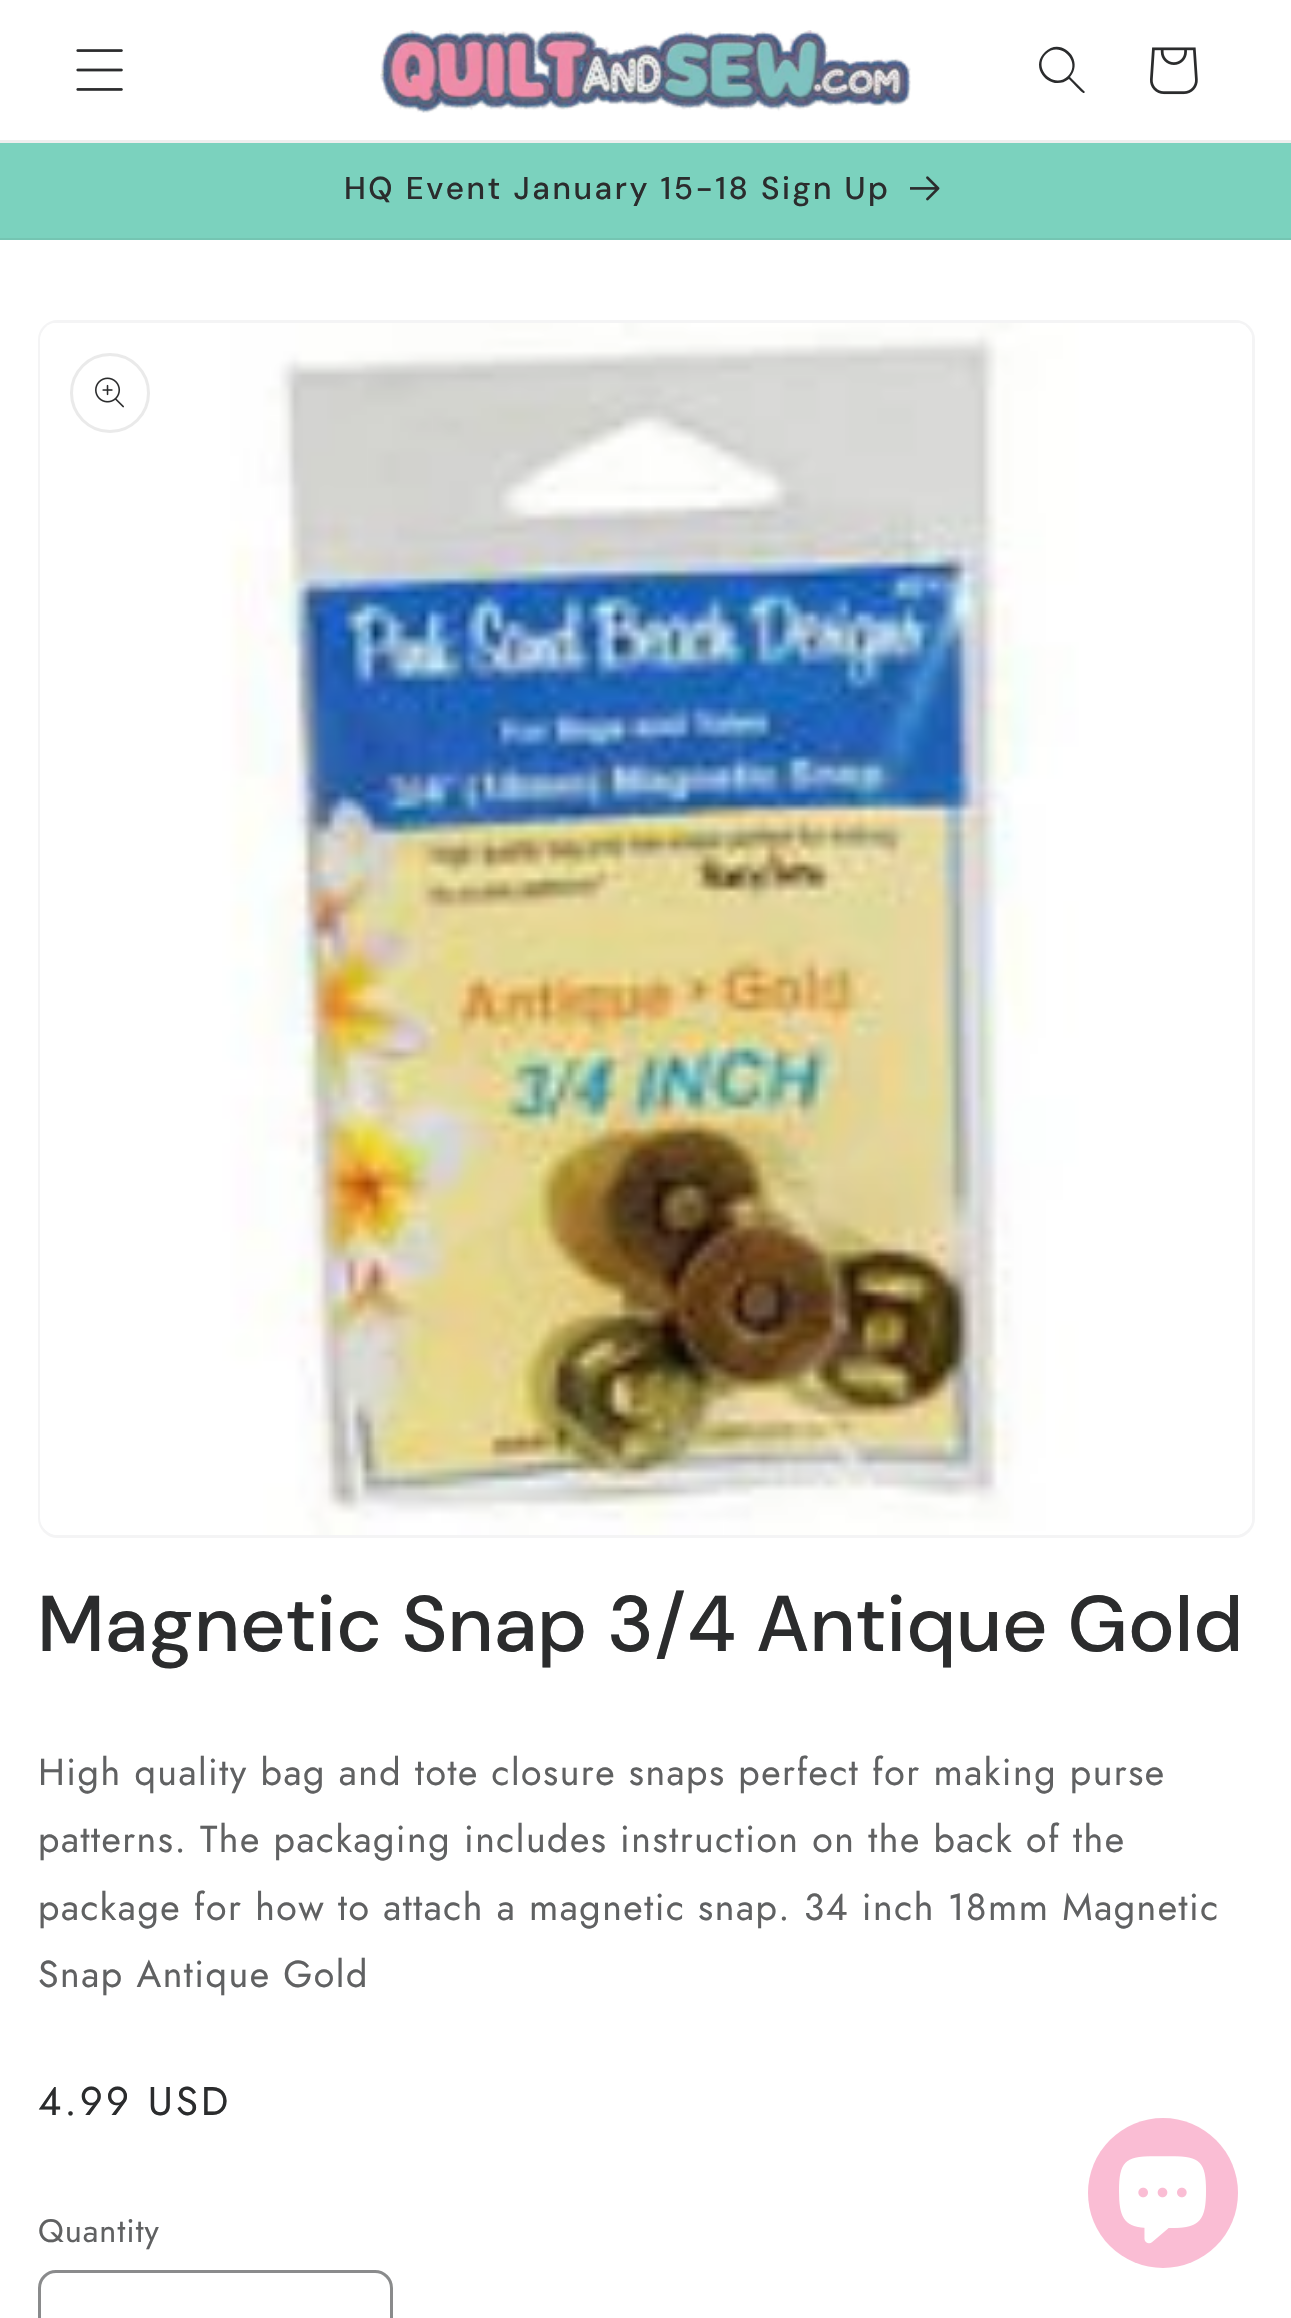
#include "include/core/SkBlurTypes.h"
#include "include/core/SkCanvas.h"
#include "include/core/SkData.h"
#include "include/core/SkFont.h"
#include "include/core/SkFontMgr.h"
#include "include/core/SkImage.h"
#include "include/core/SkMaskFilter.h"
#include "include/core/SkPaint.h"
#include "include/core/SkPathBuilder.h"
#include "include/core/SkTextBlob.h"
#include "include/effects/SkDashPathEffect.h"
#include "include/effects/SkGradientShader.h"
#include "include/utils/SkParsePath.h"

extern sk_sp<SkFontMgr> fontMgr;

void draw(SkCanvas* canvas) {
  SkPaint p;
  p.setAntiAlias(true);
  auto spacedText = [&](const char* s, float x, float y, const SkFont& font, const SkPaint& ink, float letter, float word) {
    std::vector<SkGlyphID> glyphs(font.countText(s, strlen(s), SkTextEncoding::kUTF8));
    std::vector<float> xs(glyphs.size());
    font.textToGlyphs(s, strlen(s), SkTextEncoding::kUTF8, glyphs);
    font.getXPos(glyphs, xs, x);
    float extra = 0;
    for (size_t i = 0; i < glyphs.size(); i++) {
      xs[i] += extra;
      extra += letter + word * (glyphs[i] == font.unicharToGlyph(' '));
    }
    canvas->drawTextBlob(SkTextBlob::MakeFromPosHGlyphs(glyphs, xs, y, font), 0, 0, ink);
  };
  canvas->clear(SK_ColorWHITE);
  p.setColor(SkColorSetRGB(238, 238, 238));
  canvas->drawRect(SkRect::MakeLTRB(0, 140, 1291, 143), p);
  canvas->drawImageRect(SkImages::DeferredFromEncodedData(SkData::MakeFromFileName("images/1.png")), SkRect::MakeLTRB(76, 49, 123, 91), SkSamplingOptions());
  canvas->drawImageRect(SkImages::DeferredFromEncodedData(SkData::MakeFromFileName("images/2.png")), SkRect::MakeLTRB(380, 30, 911, 113), SkSamplingOptions());
  p.setColor(SkColorSetRGB(43, 44, 45));
  canvas->drawPath(SkPathBuilder(SkPathFillType::kEvenOdd).moveTo(1068, 76).cubicTo(1054, 90, 1032, 68, 1046, 54).cubicTo(1060, 40, 1082, 62, 1068, 76).close().moveTo(1069, 79).cubicTo(1051, 93, 1028, 68, 1045, 52).cubicTo(1061, 36, 1085, 60, 1070, 77).lineTo(1085, 92).lineTo(1084, 93).cubicTo(1083, 94, 1071, 81, 1069, 79).close().detach(), p);
  canvas->drawImageRect(SkImages::DeferredFromEncodedData(SkData::MakeFromFileName("images/3.png")), SkRect::MakeLTRB(1150, 47, 1198, 95), SkSamplingOptions());
  p.setColor(SkColorSetRGB(123, 210, 190));
  canvas->drawRect(SkRect::MakeLTRB(0, 143, 1291, 238), p);
  p.setColor(SkColorSetRGB(117, 197, 178));
  canvas->drawRect(SkRect::MakeLTRB(0, 238, 1291, 240), p);
  canvas->drawImageRect(SkImages::DeferredFromEncodedData(SkData::MakeFromFileName("images/4.png")), SkRect::MakeLTRB(910, 176, 940, 201), SkSamplingOptions());
  p.setStyle(SkPaint::kStroke_Style);
  p.setStrokeWidth(3);
  p.setColor(SkColorSetRGB(244, 244, 245));
  canvas->drawRoundRect(SkRect::MakeLTRB(39.5f, 321.5f, 1253.5f, 1536.5f), 18.5f, 18.5f, p);
  canvas->drawImageRect(SkImages::DeferredFromEncodedData(SkData::MakeFromFileName("images/5.png")), SkRect::MakeLTRB(40, 323, 1252, 1535), SkSamplingOptions());
  p.setColor(SkColorSetRGB(234, 234, 234));
  canvas->drawCircle(110, 393, 38.5f, p);
  canvas->drawImageRect(SkImages::DeferredFromEncodedData(SkData::MakeFromFileName("images/6.png")), SkRect::MakeLTRB(95, 377, 124, 408), SkSamplingOptions());
  p.setColor(SkColorSetRGB(138, 139, 140));
  canvas->drawRoundRect(SkRect::MakeLTRB(39.5f, 2271.5f, 391.5f, 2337.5f), 16.5f, 16.5f, p);
  p.setStyle(SkPaint::kFill_Style);
  p.setColor(SkColorSetRGB(250, 189, 212));
  canvas->drawCircle(1163, 2193, 75, p);
  canvas->drawImageRect(SkImages::DeferredFromEncodedData(SkData::MakeFromFileName("images/7.png")), SkRect::MakeLTRB(1119, 2156, 1206, 2244), SkSamplingOptions());
  SkFont font1(fontMgr->matchFamilyStyle("DM Sans", SkFontStyle(500, SkFontStyle::kNormal_Width, SkFontStyle::kUpright_Slant)), 31.5f);
  font1.setSubpixel(true);
  p.setColor(SkColorSetRGB(43, 44, 45));
  spacedText("HQ Event January 15-18 Sign Up", 344, 199, font1, p, 2.5f, 0);
  SkFont font2(fontMgr->matchFamilyStyle("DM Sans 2", SkFontStyle(500, SkFontStyle::kNormal_Width, SkFontStyle::kUpright_Slant)), 78.75f);
  font2.setSubpixel(true);
  spacedText("Magnetic Snap 3/4 Antique Gold", 38, 1651, font2, p, 1.6f, 0);
  SkFont font3(fontMgr->matchFamilyStyle("Jost", SkFontStyle::Normal()), 37.5f);
  font3.setSubpixel(true);
  p.setColor(SkColorSetRGB(96, 97, 98));
  spacedText("High quality bag and tote closure snaps perfect for making purse", 38, 1785, font3, p, 1.5f, 0);
  spacedText("patterns. The packaging includes instruction on the back of the", 38, 1852, font3, p, 1.5f, 0);
  spacedText("package for how to attach a magnetic snap. 34 inch 18mm Magnetic", 38, 1920, font3, p, 1.5f, 0);
  spacedText("Snap Antique Gold", 38, 1987, font3, p, 1.5f, 0);
  SkFont font4(fontMgr->matchFamilyStyle("Jost", SkFontStyle::Normal()), 40);
  font4.setSubpixel(true);
  p.setColor(SkColorSetRGB(43, 44, 45));
  spacedText("4.99 USD", 38, 2115, font4, p, 3.25f, 0);
  SkFont font5(fontMgr->matchFamilyStyle("Jost", SkFontStyle::Normal()), 32.5f);
  font5.setSubpixel(true);
  p.setColor(SkColorSetRGB(96, 97, 98));
  spacedText("Quantity", 38, 2242, font5, p, 1, 0);
}
